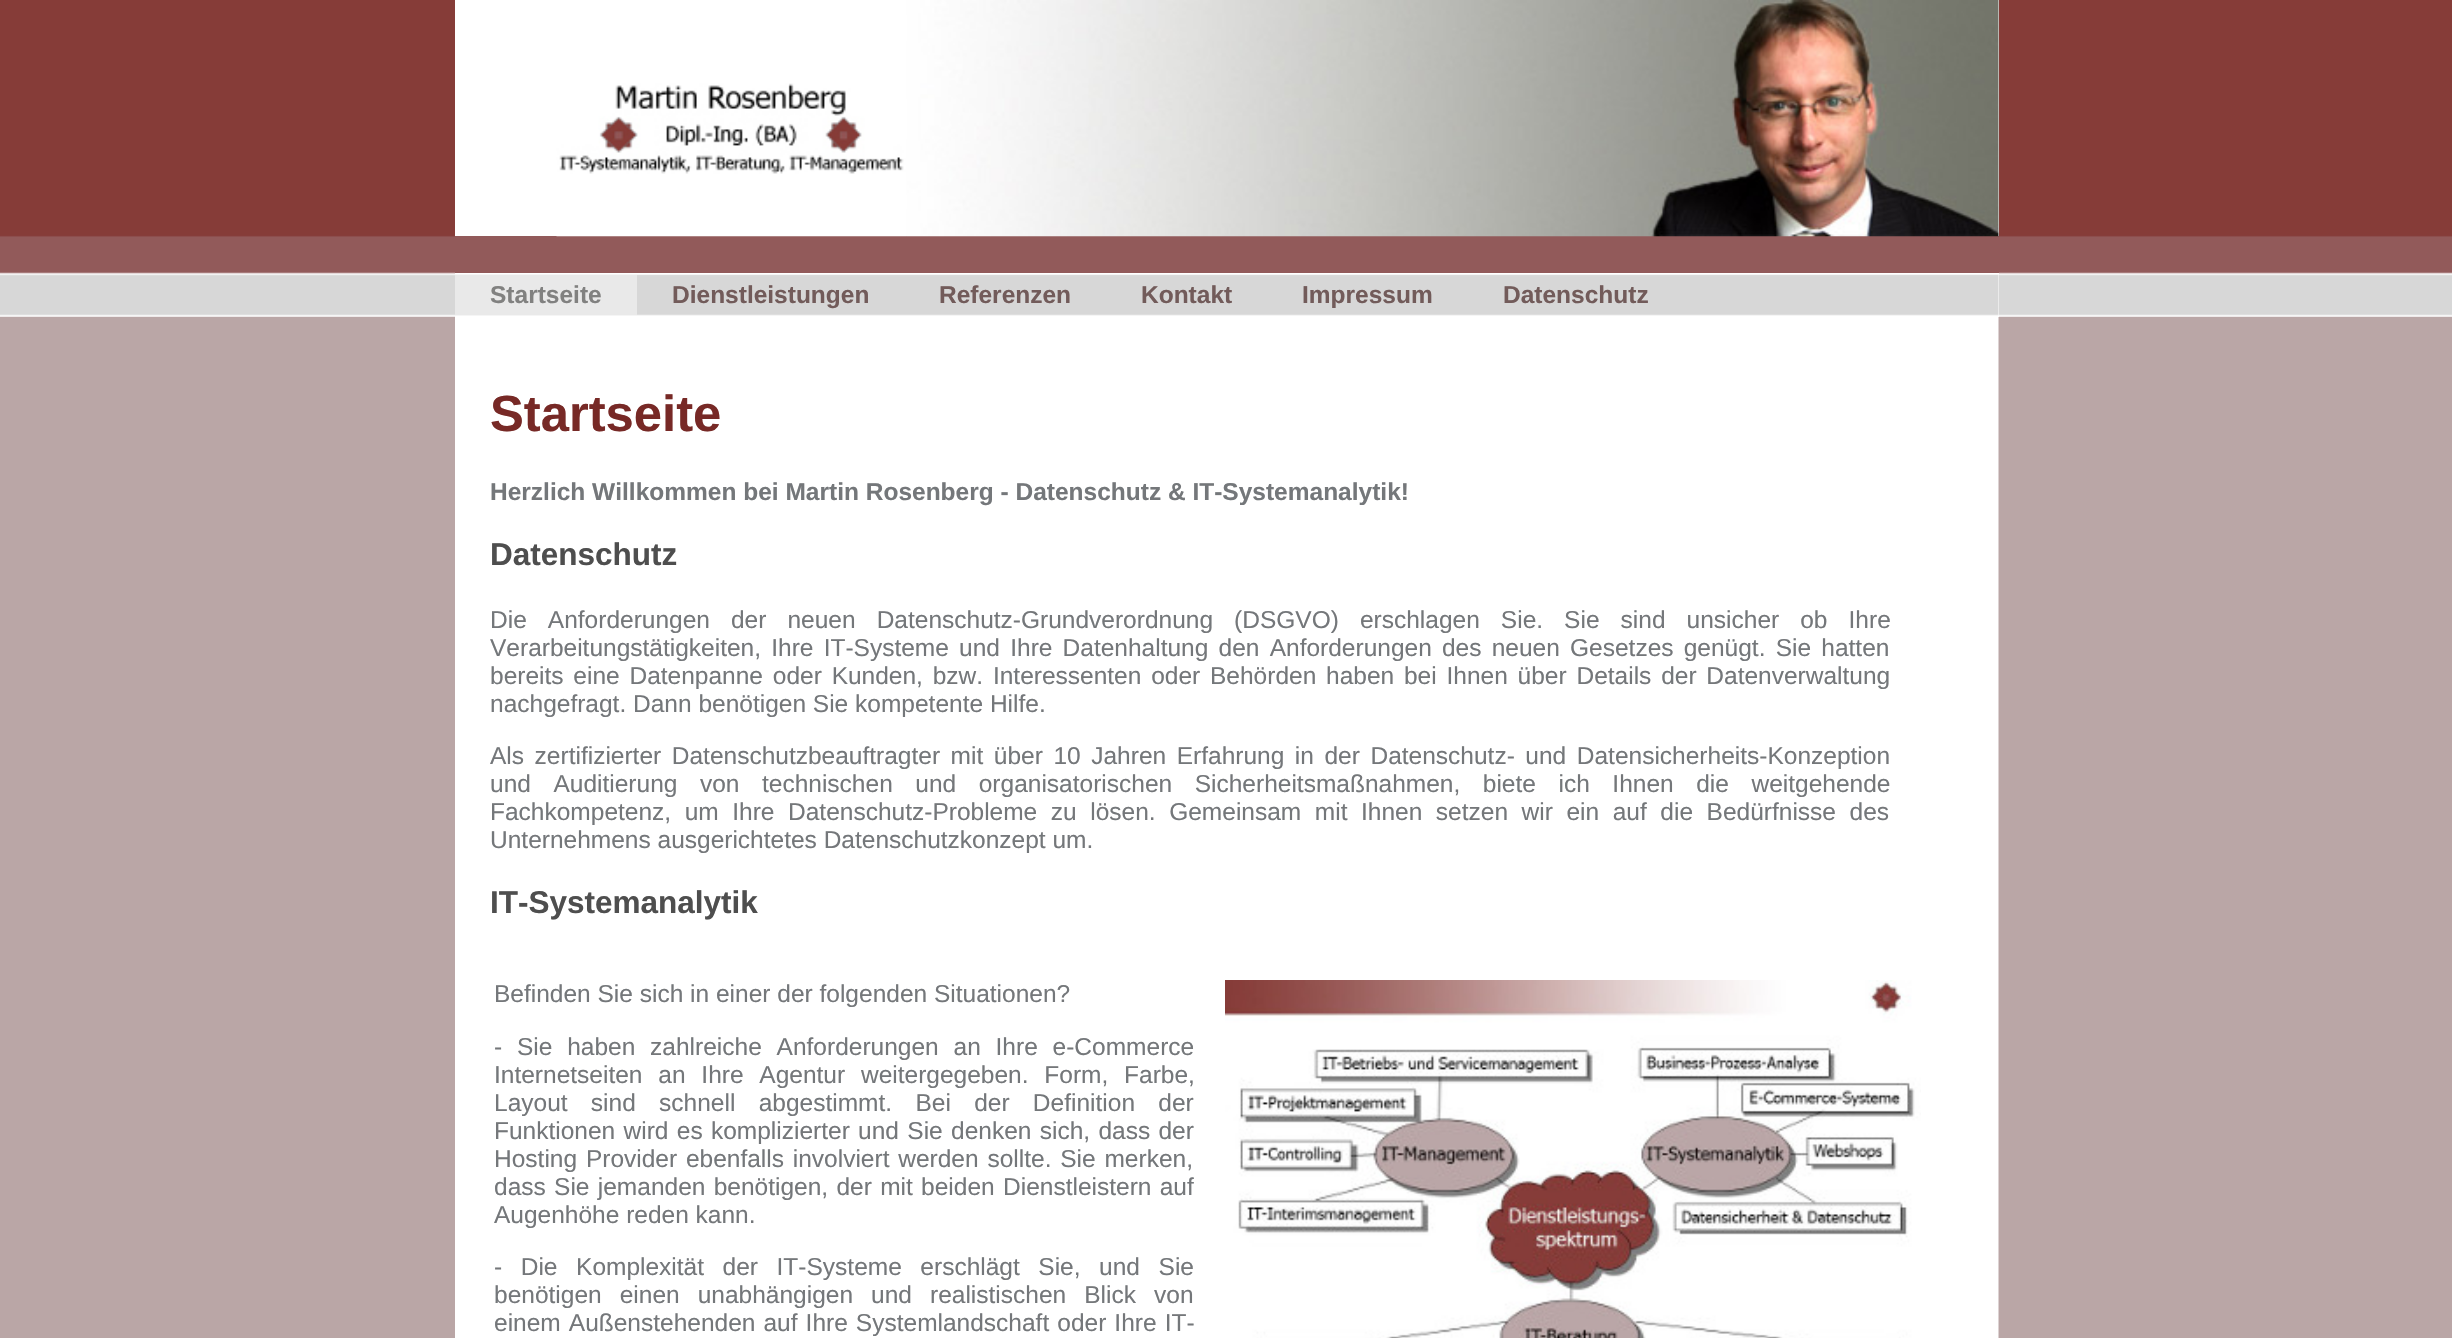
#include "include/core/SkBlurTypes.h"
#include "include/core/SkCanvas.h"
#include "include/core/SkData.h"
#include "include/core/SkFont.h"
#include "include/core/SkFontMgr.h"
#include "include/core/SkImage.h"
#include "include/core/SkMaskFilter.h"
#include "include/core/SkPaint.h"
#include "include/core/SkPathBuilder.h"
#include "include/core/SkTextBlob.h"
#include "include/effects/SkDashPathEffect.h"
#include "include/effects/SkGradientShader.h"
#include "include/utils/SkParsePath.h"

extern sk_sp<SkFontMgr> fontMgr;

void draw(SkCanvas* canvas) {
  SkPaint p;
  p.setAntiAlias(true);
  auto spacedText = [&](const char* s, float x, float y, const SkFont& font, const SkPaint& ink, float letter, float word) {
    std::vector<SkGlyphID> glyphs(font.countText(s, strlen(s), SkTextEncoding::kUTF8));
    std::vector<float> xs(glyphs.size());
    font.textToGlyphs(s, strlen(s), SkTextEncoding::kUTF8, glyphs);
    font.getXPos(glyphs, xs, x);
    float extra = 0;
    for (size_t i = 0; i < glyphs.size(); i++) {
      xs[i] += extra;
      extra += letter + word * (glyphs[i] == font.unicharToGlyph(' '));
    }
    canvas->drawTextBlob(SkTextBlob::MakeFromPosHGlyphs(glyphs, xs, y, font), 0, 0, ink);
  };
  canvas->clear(SkColorSetRGB(186, 166, 166));
  canvas->drawImageRect(SkImages::DeferredFromEncodedData(SkData::MakeFromFileName("images/1.png")), SkRect::MakeLTRB(0, 0, 2452, 317), SkSamplingOptions());
  canvas->drawImageRect(SkImages::DeferredFromEncodedData(SkData::MakeFromFileName("images/2.png")), SkRect::MakeLTRB(1925, 317, 1999, 1338), SkSamplingOptions());
  p.setColor(SK_ColorWHITE);
  canvas->drawRect(SkRect::MakeLTRB(455, 0, 1999, 317), p);
  p.setColor(SkColorSetRGB(146, 90, 90));
  canvas->drawRect(SkRect::MakeLTRB(455, 236, 1999, 273), p);
  canvas->drawImageRect(SkImages::DeferredFromEncodedData(SkData::MakeFromFileName("images/3.png")), SkRect::MakeLTRB(556, 83, 907, 237), SkSamplingOptions());
  canvas->drawImageRect(SkImages::DeferredFromEncodedData(SkData::MakeFromFileName("images/4.png")), SkRect::MakeLTRB(906, 0, 1999, 237), SkSamplingOptions());
  canvas->drawImageRect(SkImages::DeferredFromEncodedData(SkData::MakeFromFileName("images/5.png")), SkRect::MakeLTRB(455, 274, 1999, 316), SkSamplingOptions());
  p.setColor(SkColorSetRGB(233, 233, 233));
  canvas->drawRect(SkRect::MakeLTRB(455, 275, 637, 315), p);
  p.setColor(SK_ColorWHITE);
  canvas->drawRect(SkRect::MakeLTRB(455, 317, 1925, 1338), p);
  canvas->drawImageRect(SkImages::DeferredFromEncodedData(SkData::MakeFromFileName("images/6.png")), SkRect::MakeLTRB(1225, 980, 1921, 1338), SkSamplingOptions());
  SkFont font1(fontMgr->matchFamilyStyle("Liberation Sans", SkFontStyle::Bold()), 24.5f);
  font1.setSubpixel(true);
  p.setColor(SkColorSetRGB(129, 129, 128));
  canvas->drawString("Startseite", 490, 303, font1, p);
  p.setColor(SkColorSetRGB(114, 91, 90));
  canvas->drawString("Dienstleistungen", 672, 303, font1, p);
  canvas->drawString("Referenzen", 939, 303, font1, p);
  canvas->drawString("Kontakt", 1141, 303, font1, p);
  canvas->drawString("Impressum", 1302, 303, font1, p);
  canvas->drawString("Datenschutz", 1503, 303, font1, p);
  SkFont font2(fontMgr->matchFamilyStyle("Liberation Sans", SkFontStyle::Bold()), 50.75f);
  font2.setSubpixel(true);
  p.setColor(SkColorSetRGB(119, 41, 38));
  canvas->drawString("Startseite", 490, 431, font2, p);
  p.setColor(SkColorSetRGB(116, 119, 122));
  canvas->drawString("Herzlich Willkommen bei Martin Rosenberg - Datenschutz & IT-Systemanalytik!", 490, 500, font1, p);
  SkFont font3(fontMgr->matchFamilyStyle("Liberation Sans", SkFontStyle::Bold()), 31.5f);
  font3.setSubpixel(true);
  p.setColor(SkColorSetRGB(78, 78, 78));
  canvas->drawString("Datenschutz", 490, 565, font3, p);
  SkFont font4(fontMgr->matchFamilyStyle("Liberation Sans", SkFontStyle::Normal()), 24.5f);
  font4.setSubpixel(true);
  p.setColor(SkColorSetRGB(116, 119, 122));
  spacedText("Die Anforderungen der neuen Datenschutz-Grundverordnung (DSGVO) erschlagen Sie. Sie sind unsicher ob Ihre", 490, 628, font4, p, 0, 14.25f);
  spacedText("Verarbeitungstätigkeiten, Ihre IT-Systeme und Ihre Datenhaltung den Anforderungen des neuen Gesetzes genügt. Sie hatten", 490, 656, font4, p, 0, 3.4f);
  spacedText("bereits eine Datenpanne oder Kunden, bzw. Interessenten oder Behörden haben bei Ihnen über Details der Datenverwaltung", 490, 684, font4, p, 0, 3);
  canvas->drawString("nachgefragt. Dann benötigen Sie kompetente Hilfe.", 490, 712, font4, p);
  spacedText("Als zertifizierter Datenschutzbeauftragter mit über 10 Jahren Erfahrung in der Datenschutz- und Datensicherheits-Konzeption", 490, 764, font4, p, 0, 3.75f);
  spacedText("und Auditierung von technischen und organisatorischen Sicherheitsmaßnahmen, biete ich Ihnen die weitgehende", 490, 792, font4, p, 0, 15.75f);
  spacedText("Fachkompetenz, um Ihre Datenschutz-Probleme zu lösen. Gemeinsam mit Ihnen setzen wir ein auf die Bedürfnisse des", 490, 820, font4, p, 0, 6.75f);
  canvas->drawString("Unternehmens ausgerichtetes Datenschutzkonzept um.", 490, 848, font4, p);
  p.setColor(SkColorSetRGB(78, 78, 78));
  canvas->drawString("IT-Systemanalytik", 490, 913, font3, p);
  p.setColor(SkColorSetRGB(116, 119, 122));
  canvas->drawString("Befinden Sie sich in einer der folgenden Situationen?", 494, 1002, font4, p);
  spacedText("- Sie haben zahlreiche Anforderungen an Ihre e-Commerce", 494, 1055, font4, p, 0, 8);
  spacedText("Internetseiten an Ihre Agentur weitergegeben. Form, Farbe,", 494, 1083, font4, p, 0, 9);
  spacedText("Layout sind schnell abgestimmt. Bei der Definition der", 494, 1111, font4, p, 0, 16.5f);
  spacedText("Funktionen wird es komplizierter und Sie denken sich, dass der", 494, 1139, font4, p, 0, 1.5f);
  spacedText("Hosting Provider ebenfalls involviert werden sollte. Sie merken,", 494, 1167, font4, p, 0, 2);
  spacedText("dass Sie jemanden benötigen, der mit beiden Dienstleistern auf", 494, 1195, font4, p, 0, 1.5f);
  canvas->drawString("Augenhöhe reden kann.", 494, 1223, font4, p);
  spacedText("- Die Komplexität der IT-Systeme erschlägt Sie, und Sie", 494, 1275, font4, p, 0, 11.75f);
  spacedText("benötigen einen unabhängigen und realistischen Blick von", 494, 1303, font4, p, 0, 11.25f);
  spacedText("einem Außenstehenden auf Ihre Systemlandschaft oder Ihre IT-", 494, 1331, font4, p, 0, 1.25f);
}
